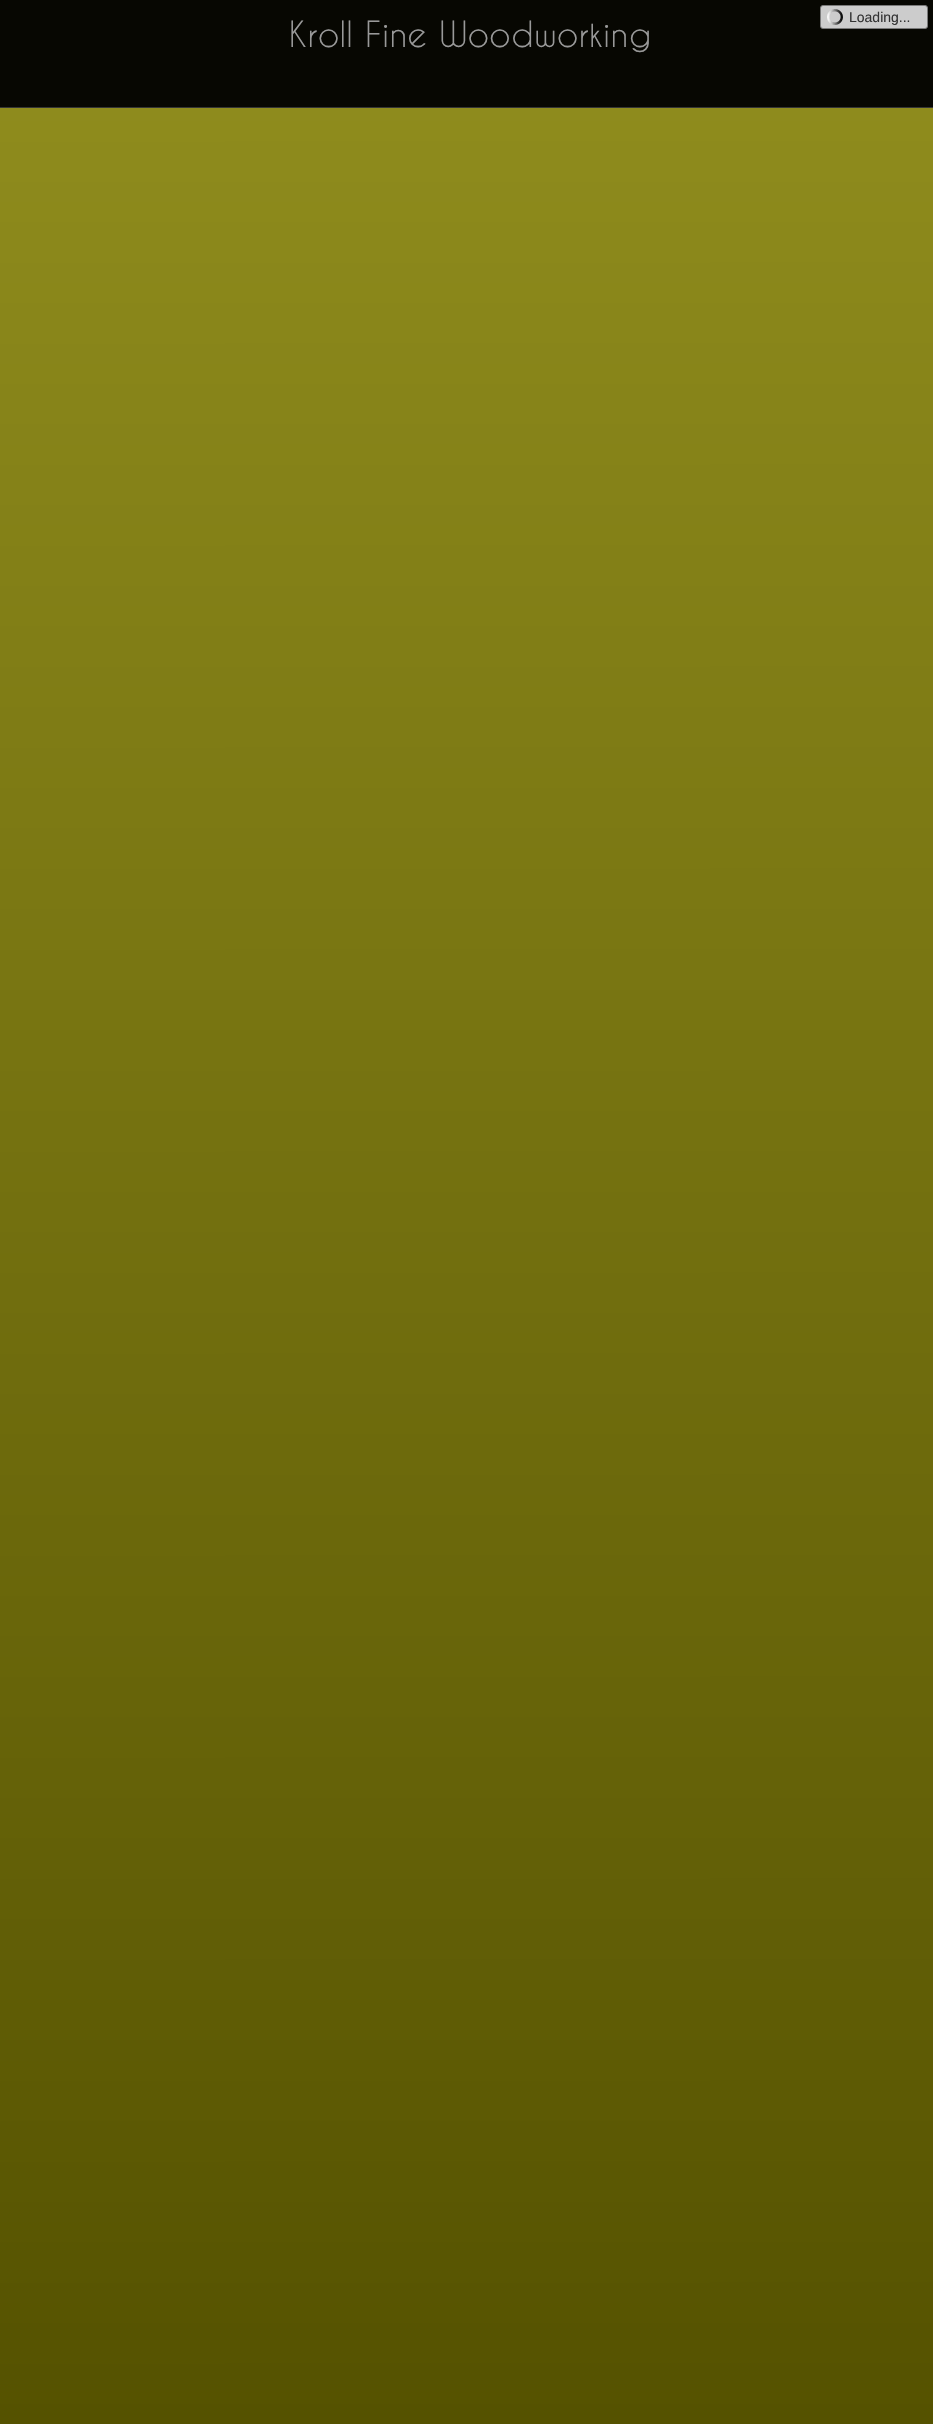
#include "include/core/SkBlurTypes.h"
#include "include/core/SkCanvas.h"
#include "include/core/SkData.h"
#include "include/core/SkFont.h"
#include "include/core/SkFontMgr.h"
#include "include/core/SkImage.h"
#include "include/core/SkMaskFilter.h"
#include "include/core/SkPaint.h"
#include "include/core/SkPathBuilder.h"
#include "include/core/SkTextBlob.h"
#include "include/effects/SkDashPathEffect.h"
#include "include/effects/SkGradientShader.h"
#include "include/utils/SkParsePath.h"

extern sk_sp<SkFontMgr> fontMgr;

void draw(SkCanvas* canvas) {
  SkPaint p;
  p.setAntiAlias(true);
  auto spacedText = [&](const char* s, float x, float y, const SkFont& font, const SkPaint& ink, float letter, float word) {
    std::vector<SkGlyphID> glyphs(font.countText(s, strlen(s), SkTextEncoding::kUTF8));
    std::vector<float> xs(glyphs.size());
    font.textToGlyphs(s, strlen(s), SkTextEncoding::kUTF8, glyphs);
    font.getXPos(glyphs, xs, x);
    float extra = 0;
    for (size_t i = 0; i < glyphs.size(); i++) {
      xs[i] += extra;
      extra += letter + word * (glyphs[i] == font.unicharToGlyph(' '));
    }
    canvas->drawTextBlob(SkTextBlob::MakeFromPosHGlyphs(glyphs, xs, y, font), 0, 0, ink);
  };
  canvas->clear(SK_ColorWHITE);
  {
    const SkColor colors[] = {SkColorSetRGB(145, 142, 30), SkColorSetRGB(85, 82, 0)};
    const float stops[] = {0, 1};
    const SkPoint ends[] = {{466, 0}, {467, 2424}};
    p.setShader(SkGradientShader::MakeLinear(ends, colors, stops, 2, SkTileMode::kClamp));
    p.setAlpha(255);
  }
  canvas->drawRect(SkRect::MakeLTRB(0, 108, 933, 2424), p);
  {
    const SkColor colors[] = {SkColorSetRGB(7, 7, 2), SkColorSetRGB(4, 4, 0)};
    const float stops[] = {0, 1};
    const SkPoint ends[] = {{466, 0}, {467, 2424}};
    p.setShader(SkGradientShader::MakeLinear(ends, colors, stops, 2, SkTileMode::kClamp));
    p.setAlpha(255);
  }
  canvas->drawRect(SkRect::MakeLTRB(0, 0, 933, 107), p);
  p.setShader(nullptr);
  p.setColor(SkColorSetRGB(204, 204, 204));
  canvas->drawRoundRect(SkRect::MakeLTRB(820.5f, 5.5f, 927.5f, 28.5f), 2.5f, 2.5f, p);
  p.setStyle(SkPaint::kStroke_Style);
  p.setStrokeWidth(1);
  p.setColor(SkColorSetRGB(122, 122, 122));
  canvas->drawRoundRect(SkRect::MakeLTRB(820.5f, 5.5f, 927.5f, 28.5f), 2.5f, 2.5f, p);
  canvas->drawImageRect(SkImages::DeferredFromEncodedData(SkData::MakeFromFileName("images/1.png")), SkRect::MakeLTRB(827, 9, 843, 25), SkSamplingOptions());
  p.setStyle(SkPaint::kFill_Style);
  p.setColor(SkColorSetRGB(53, 53, 53));
  canvas->drawRect(SkRect::MakeLTRB(0, 107, 933, 108), p);
  SkFont font1(fontMgr->matchFamilyStyle("Liberation Sans", SkFontStyle::Normal()), 14);
  font1.setSubpixel(true);
  p.setColor(SkColorSetRGB(51, 51, 51));
  canvas->drawString("Loading...", 849, 22, font1, p);
  SkFont font2(fontMgr->matchFamilyStyle("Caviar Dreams", SkFontStyle(300, SkFontStyle::kNormal_Width, SkFontStyle::kUpright_Slant)), 34);
  font2.setSubpixel(true);
  p.setColor(SkColorSetRGB(153, 153, 153));
  spacedText("Kroll Fine Woodworking", 289, 47, font2, p, 0.4f, 0);
}
